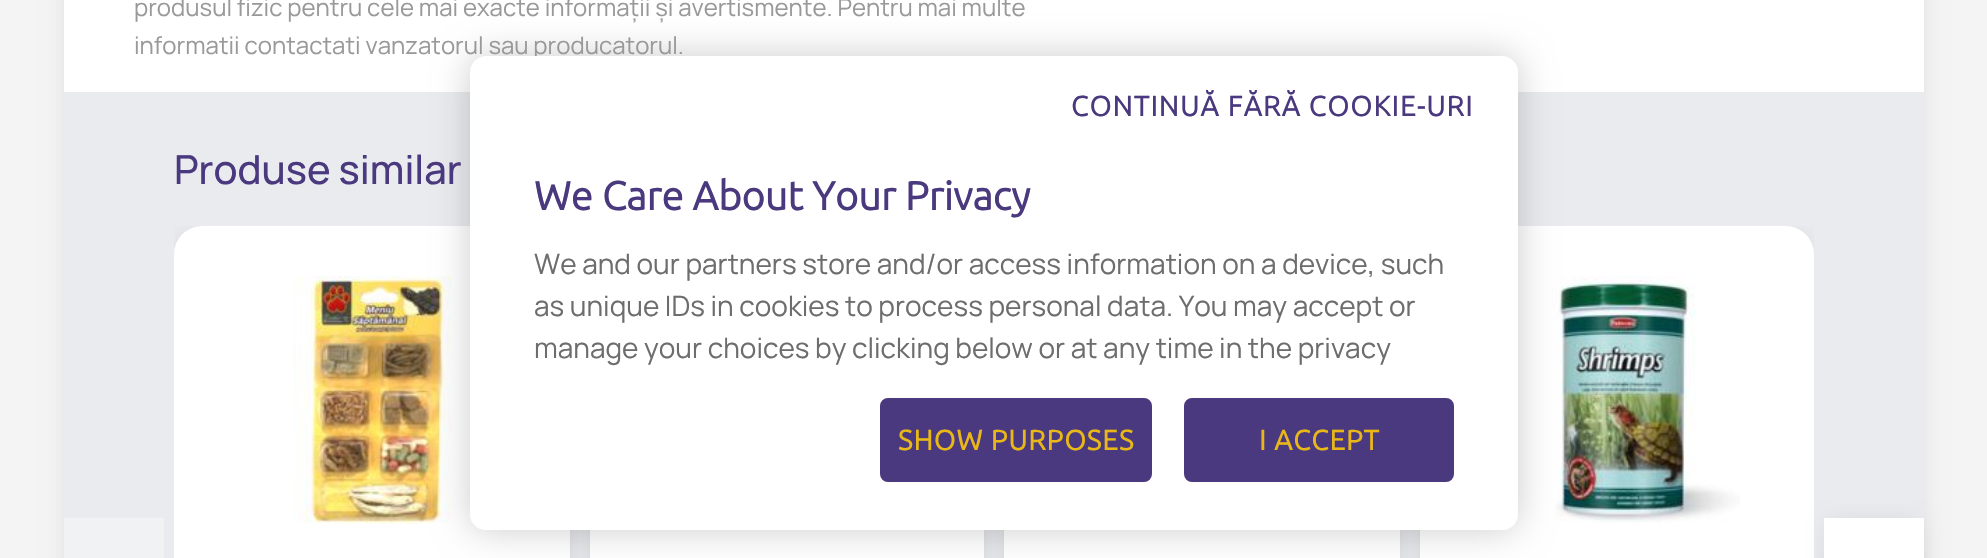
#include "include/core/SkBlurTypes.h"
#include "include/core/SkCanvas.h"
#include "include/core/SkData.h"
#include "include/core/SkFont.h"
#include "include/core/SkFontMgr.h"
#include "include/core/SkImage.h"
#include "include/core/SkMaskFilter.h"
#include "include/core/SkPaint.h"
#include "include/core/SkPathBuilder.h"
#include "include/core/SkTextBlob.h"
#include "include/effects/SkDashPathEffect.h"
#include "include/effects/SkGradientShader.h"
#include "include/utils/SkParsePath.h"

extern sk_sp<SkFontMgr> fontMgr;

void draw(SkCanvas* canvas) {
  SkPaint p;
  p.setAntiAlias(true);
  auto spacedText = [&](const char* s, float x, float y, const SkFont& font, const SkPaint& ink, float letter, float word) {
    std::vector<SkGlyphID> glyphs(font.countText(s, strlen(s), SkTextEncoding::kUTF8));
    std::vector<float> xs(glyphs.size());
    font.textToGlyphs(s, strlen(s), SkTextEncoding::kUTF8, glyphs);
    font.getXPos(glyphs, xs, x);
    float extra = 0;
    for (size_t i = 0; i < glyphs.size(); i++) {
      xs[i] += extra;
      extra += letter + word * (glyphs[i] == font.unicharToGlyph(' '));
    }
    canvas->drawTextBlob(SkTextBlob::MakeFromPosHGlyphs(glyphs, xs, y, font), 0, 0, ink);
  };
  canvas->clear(SkColorSetRGB(244, 244, 244));
  p.setColor(SkColorSetARGB(38, 0, 0, 0));
  p.setMaskFilter(SkMaskFilter::MakeBlur(kNormal_SkBlurStyle, 12));
  canvas->drawRect(SkRect::MakeLTRB(72, -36, 1916, 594), p);
  p.setMaskFilter(nullptr);
  p.setColor(SK_ColorWHITE);
  canvas->drawRect(SkRect::MakeLTRB(64, 0, 1924, 92), p);
  p.setColor(SkColorSetRGB(233, 235, 238));
  canvas->drawRect(SkRect::MakeLTRB(64, 92, 1924, 558), p);
  canvas->save();
  canvas->clipRect(SkRect::MakeLTRB(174, 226, 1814, 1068));
  p.setColor(SkColorSetARGB(38, 0, 0, 0));
  p.setMaskFilter(SkMaskFilter::MakeBlur(kNormal_SkBlurStyle, 12));
  canvas->drawRoundRect(SkRect::MakeLTRB(182, 238, 562, 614), 20, 20, p);
  p.setMaskFilter(nullptr);
  canvas->restore();
  p.setColor(SkColorSetRGB(241, 242, 244));
  canvas->drawRect(SkRect::MakeLTRB(64, 518, 164, 558), p);
  p.setColor(SK_ColorWHITE);
  canvas->drawRoundRect(SkRect::MakeLTRB(174, 226, 570, 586), 28, 28, p);
  canvas->drawImageRect(SkImages::DeferredFromEncodedData(SkData::MakeFromFileName("images/1.png")), SkRect::MakeLTRB(293, 276, 452, 525), SkSamplingOptions());
  p.setColor(SkColorSetARGB(38, 0, 0, 0));
  p.setMaskFilter(SkMaskFilter::MakeBlur(kNormal_SkBlurStyle, 12));
  canvas->drawRoundRect(SkRect::MakeLTRB(598, 238, 976, 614), 20, 20, p);
  p.setMaskFilter(nullptr);
  p.setColor(SK_ColorWHITE);
  canvas->drawRect(SkRect::MakeLTRB(590, 530, 984, 558), p);
  p.setColor(SkColorSetARGB(38, 0, 0, 0));
  p.setMaskFilter(SkMaskFilter::MakeBlur(kNormal_SkBlurStyle, 12));
  canvas->drawRoundRect(SkRect::MakeLTRB(1012, 238, 1392, 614), 20, 20, p);
  p.setMaskFilter(nullptr);
  p.setColor(SK_ColorWHITE);
  canvas->drawRect(SkRect::MakeLTRB(1004, 530, 1400, 558), p);
  canvas->save();
  canvas->clipRect(SkRect::MakeLTRB(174, 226, 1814, 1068));
  p.setColor(SkColorSetARGB(38, 0, 0, 0));
  p.setMaskFilter(SkMaskFilter::MakeBlur(kNormal_SkBlurStyle, 12));
  canvas->drawRoundRect(SkRect::MakeLTRB(1428, 238, 1806, 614), 20, 20, p);
  p.setMaskFilter(nullptr);
  canvas->restore();
  p.setColor(SK_ColorWHITE);
  canvas->drawRoundRect(SkRect::MakeLTRB(1420, 226, 1814, 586), 28, 28, p);
  canvas->drawImageRect(SkImages::DeferredFromEncodedData(SkData::MakeFromFileName("images/2.png")), SkRect::MakeLTRB(1552, 276, 1740, 523), SkSamplingOptions());
  p.setColor(SkColorSetARGB(38, 0, 0, 0));
  p.setMaskFilter(SkMaskFilter::MakeBlur(kNormal_SkBlurStyle, 12));
  canvas->drawRect(SkRect::MakeLTRB(1832, 526, 1916, 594), p);
  p.setMaskFilter(nullptr);
  p.setColor(SK_ColorWHITE);
  canvas->drawRect(SkRect::MakeLTRB(1824, 518, 1924, 558), p);
  p.setColor(SkColorSetARGB(51, 0, 0, 0));
  p.setMaskFilter(SkMaskFilter::MakeBlur(kNormal_SkBlurStyle, 18));
  canvas->drawRoundRect(SkRect::MakeLTRB(470, 56, 1518, 530), 16, 16, p);
  p.setMaskFilter(nullptr);
  SkFont font1(fontMgr->matchFamilyStyle("Manrope", SkFontStyle::Normal()), 24);
  font1.setSubpixel(true);
  p.setColor(SkColorSetRGB(153, 153, 153));
  canvas->drawString("produsul fizic pentru cele mai exacte informații și avertismente. Pentru mai multe", 134, 16, font1, p);
  canvas->drawString("informatii contactati vanzatorul sau producatorul.", 134, 54, font1, p);
  SkFont font2(fontMgr->matchFamilyStyle("Manrope", SkFontStyle(500, SkFontStyle::kNormal_Width, SkFontStyle::kUpright_Slant)), 40);
  font2.setSubpixel(true);
  p.setColor(SkColorSetRGB(74, 57, 126));
  canvas->drawString("Produse similar", 174, 184, font2, p);
  p.setColor(SK_ColorWHITE);
  canvas->drawRoundRect(SkRect::MakeLTRB(470, 56, 1518, 530), 16, 16, p);
  SkFont font3(fontMgr->matchFamilyStyle("Ubuntu", SkFontStyle::Bold()), 28);
  font3.setSubpixel(true);
  p.setColor(SkColorSetRGB(74, 57, 126));
  spacedText("CONTINUĂ FĂRĂ COOKIE-URI", 1071, 116, font3, p, 1.4f, 0);
  SkFont font4(fontMgr->matchFamilyStyle("Ubuntu", SkFontStyle::Bold()), 40);
  font4.setSubpixel(true);
  canvas->drawString("We Care About Your Privacy", 534, 210, font4, p);
  SkFont font5(fontMgr->matchFamilyStyle("Manrope", SkFontStyle::Normal()), 28);
  font5.setSubpixel(true);
  p.setColor(SkColorSetRGB(109, 109, 109));
  canvas->drawString("We and our partners store and/or access information on a device, such", 534, 274, font5, p);
  canvas->drawString("as unique IDs in cookies to process personal data. You may accept or", 534, 316, font5, p);
  canvas->drawString("manage your choices by clicking below or at any time in the privacy", 534, 358, font5, p);
  p.setColor(SK_ColorWHITE);
  canvas->drawPath(SkPathBuilder().moveTo(470, 366).lineTo(1518, 366).lineTo(1518, 514).cubicTo(1518, 523, 1511, 530, 1502, 530).lineTo(486, 530).cubicTo(477, 530, 470, 523, 470, 514).close().detach(), p);
  p.setColor(SkColorSetRGB(74, 57, 126));
  canvas->drawRoundRect(SkRect::MakeLTRB(881, 399, 1151, 481), 7, 7, p);
  p.setStyle(SkPaint::kStroke_Style);
  p.setStrokeWidth(2);
  canvas->drawRoundRect(SkRect::MakeLTRB(881, 399, 1151, 481), 7, 7, p);
  p.setStyle(SkPaint::kFill_Style);
  p.setColor(SkColorSetRGB(233, 184, 24));
  spacedText("SHOW PURPOSES", 898, 450, font3, p, 1, 0);
  p.setColor(SkColorSetRGB(74, 57, 126));
  canvas->drawRoundRect(SkRect::MakeLTRB(1185, 399, 1453, 481), 7, 7, p);
  p.setStyle(SkPaint::kStroke_Style);
  canvas->drawRoundRect(SkRect::MakeLTRB(1185, 399, 1453, 481), 7, 7, p);
  p.setStyle(SkPaint::kFill_Style);
  p.setColor(SkColorSetRGB(233, 184, 24));
  spacedText("I ACCEPT", 1259, 450, font3, p, 1, 0);
}
